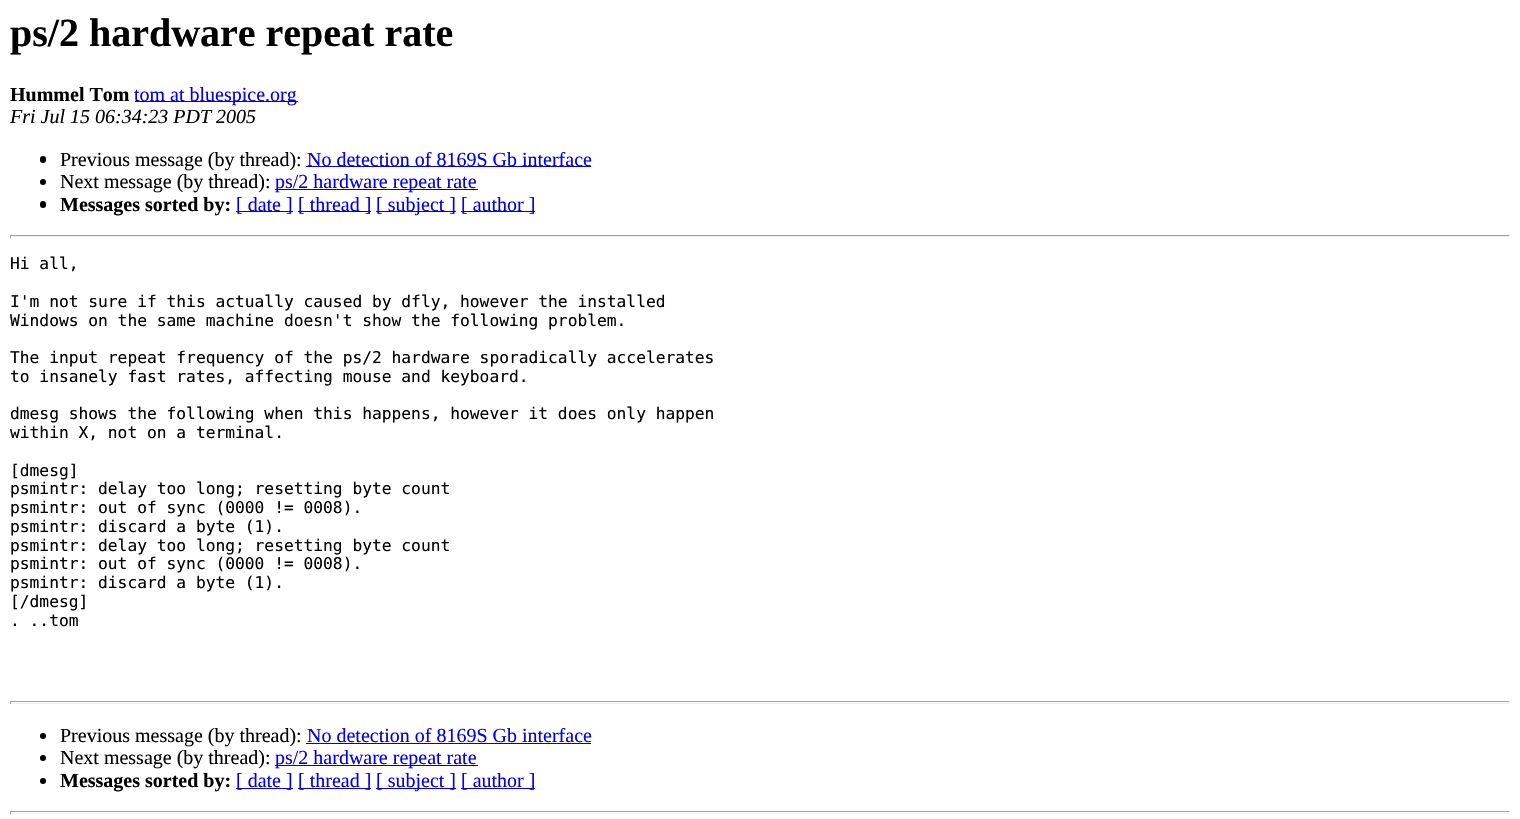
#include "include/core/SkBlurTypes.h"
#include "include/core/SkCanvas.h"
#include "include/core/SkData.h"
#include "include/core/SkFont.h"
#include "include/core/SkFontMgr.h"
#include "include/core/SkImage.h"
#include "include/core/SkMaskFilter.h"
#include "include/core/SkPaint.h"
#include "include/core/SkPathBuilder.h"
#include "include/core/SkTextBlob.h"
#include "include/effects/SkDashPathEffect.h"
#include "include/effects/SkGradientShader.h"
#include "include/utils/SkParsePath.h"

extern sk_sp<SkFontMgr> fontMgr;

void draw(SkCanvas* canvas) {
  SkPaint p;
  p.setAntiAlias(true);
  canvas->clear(SK_ColorWHITE);
  p.setColor(SkColorSetRGB(0, 0, 238));
  canvas->drawRect(SkRect::MakeLTRB(135, 101, 298, 102), p);
  p.setColor(SK_ColorBLACK);
  canvas->drawRoundRect(SkRect::MakeLTRB(40, 156, 46, 163), 3, 3, p);
  p.setColor(SkColorSetRGB(0, 0, 238));
  canvas->drawRect(SkRect::MakeLTRB(306, 166, 591, 167), p);
  p.setColor(SK_ColorBLACK);
  canvas->drawCircle(43, 182, 3, p);
  p.setColor(SkColorSetRGB(0, 0, 238));
  canvas->drawRect(SkRect::MakeLTRB(275, 189, 478, 190), p);
  p.setColor(SK_ColorBLACK);
  canvas->drawRoundRect(SkRect::MakeLTRB(40, 201, 46, 208), 3, 3, p);
  p.setColor(SkColorSetRGB(0, 0, 238));
  canvas->drawRect(SkRect::MakeLTRB(236, 211, 293, 212), p);
  canvas->drawRect(SkRect::MakeLTRB(298, 211, 371, 212), p);
  canvas->drawRect(SkRect::MakeLTRB(376, 211, 456, 212), p);
  canvas->drawRect(SkRect::MakeLTRB(461, 211, 535, 212), p);
  p.setColor(SkColorSetRGB(159, 159, 159));
  canvas->drawRect(SkRect::MakeLTRB(10, 235, 1510, 236), p);
  p.setColor(SkColorSetRGB(238, 238, 238));
  canvas->drawRect(SkRect::MakeLTRB(1509, 235, 1510, 238), p);
  canvas->drawRect(SkRect::MakeLTRB(10, 236, 1510, 237), p);
  p.setColor(SkColorSetRGB(159, 159, 159));
  canvas->drawRect(SkRect::MakeLTRB(10, 235, 11, 238), p);
  canvas->drawRect(SkRect::MakeLTRB(10, 701, 1510, 702), p);
  p.setColor(SkColorSetRGB(238, 238, 238));
  canvas->drawRect(SkRect::MakeLTRB(1509, 701, 1510, 704), p);
  canvas->drawRect(SkRect::MakeLTRB(10, 703, 1510, 704), p);
  p.setColor(SkColorSetRGB(159, 159, 159));
  canvas->drawRect(SkRect::MakeLTRB(10, 701, 11, 704), p);
  p.setColor(SK_ColorBLACK);
  canvas->drawCircle(43, 736, 3, p);
  p.setColor(SkColorSetRGB(0, 0, 238));
  canvas->drawRect(SkRect::MakeLTRB(306, 743, 591, 744), p);
  p.setColor(SK_ColorBLACK);
  canvas->drawCircle(43, 758, 3, p);
  p.setColor(SkColorSetRGB(0, 0, 238));
  canvas->drawRect(SkRect::MakeLTRB(275, 765, 478, 766), p);
  p.setColor(SK_ColorBLACK);
  canvas->drawCircle(43, 781, 3, p);
  p.setColor(SkColorSetRGB(0, 0, 238));
  canvas->drawRect(SkRect::MakeLTRB(236, 788, 293, 789), p);
  canvas->drawRect(SkRect::MakeLTRB(298, 788, 371, 789), p);
  canvas->drawRect(SkRect::MakeLTRB(376, 788, 456, 789), p);
  canvas->drawRect(SkRect::MakeLTRB(461, 788, 535, 789), p);
  p.setColor(SkColorSetRGB(159, 159, 159));
  canvas->drawRect(SkRect::MakeLTRB(10, 811, 1510, 812), p);
  p.setColor(SkColorSetRGB(238, 238, 238));
  canvas->drawRect(SkRect::MakeLTRB(1509, 811, 1510, 814), p);
  canvas->drawRect(SkRect::MakeLTRB(10, 813, 1510, 814), p);
  p.setColor(SkColorSetRGB(159, 159, 159));
  canvas->drawRect(SkRect::MakeLTRB(10, 811, 11, 814), p);
  SkFont font1(fontMgr->matchFamilyStyle("Liberation Serif", SkFontStyle::Bold()), 40);
  font1.setSubpixel(true);
  p.setColor(SK_ColorBLACK);
  canvas->drawString("ps/2 hardware repeat rate", 10, 46, font1, p);
  SkFont font2(fontMgr->matchFamilyStyle("Liberation Serif", SkFontStyle::Bold()), 20);
  font2.setSubpixel(true);
  canvas->drawString("Hummel Tom", 10, 101, font2, p);
  SkFont font3(fontMgr->matchFamilyStyle("Liberation Serif", SkFontStyle::Normal()), 20);
  font3.setSubpixel(true);
  p.setColor(SkColorSetRGB(0, 0, 238));
  canvas->drawString("tom at bluespice.org", 134, 101, font3, p);
  SkFont font4(fontMgr->matchFamilyStyle("Liberation Serif", SkFontStyle::Italic()), 20);
  font4.setSubpixel(true);
  p.setColor(SK_ColorBLACK);
  canvas->drawString("Fri Jul 15 06:34:23 PDT 2005", 10, 123, font4, p);
  canvas->drawString("Previous message (by thread):", 60, 166, font3, p);
  p.setColor(SkColorSetRGB(0, 0, 238));
  canvas->drawString("No detection of 8169S Gb interface", 307, 166, font3, p);
  p.setColor(SK_ColorBLACK);
  canvas->drawString("Next message (by thread):", 60, 188, font3, p);
  p.setColor(SkColorSetRGB(0, 0, 238));
  canvas->drawString("ps/2 hardware repeat rate", 275, 188, font3, p);
  p.setColor(SK_ColorBLACK);
  canvas->drawString("Messages sorted by:", 60, 211, font2, p);
  p.setColor(SkColorSetRGB(0, 0, 238));
  canvas->drawString("[ date ]", 236, 211, font3, p);
  canvas->drawString("[ thread ]", 298, 211, font3, p);
  canvas->drawString("[ subject ]", 376, 211, font3, p);
  canvas->drawString("[ author ]", 461, 211, font3, p);
  SkFont font5(fontMgr->matchFamilyStyle("DejaVu Sans Mono", SkFontStyle::Normal()), 16.25f);
  font5.setSubpixel(true);
  p.setColor(SK_ColorBLACK);
  canvas->drawString("Hi all,", 10, 269, font5, p);
  canvas->drawString("I'm not sure if this actually caused by dfly, however the installed", 10, 307, font5, p);
  canvas->drawString("Windows on the same machine doesn't show the following problem.", 10, 326, font5, p);
  canvas->drawString("The input repeat frequency of the ps/2 hardware sporadically accelerates", 10, 363, font5, p);
  canvas->drawString("to insanely fast rates, affecting mouse and keyboard.", 10, 382, font5, p);
  canvas->drawString("dmesg shows the following when this happens, however it does only happen", 10, 419, font5, p);
  canvas->drawString("within X, not on a terminal.", 10, 438, font5, p);
  canvas->drawString("[dmesg]", 10, 476, font5, p);
  canvas->drawString("psmintr: delay too long; resetting byte count", 10, 494, font5, p);
  canvas->drawString("psmintr: out of sync (0000 != 0008).", 10, 513, font5, p);
  canvas->drawString("psmintr: discard a byte (1).", 10, 532, font5, p);
  canvas->drawString("psmintr: delay too long; resetting byte count", 10, 551, font5, p);
  canvas->drawString("psmintr: out of sync (0000 != 0008).", 10, 569, font5, p);
  canvas->drawString("psmintr: discard a byte (1).", 10, 588, font5, p);
  canvas->drawString("[/dmesg]", 10, 607, font5, p);
  canvas->drawString(". ..tom", 10, 626, font5, p);
  canvas->drawString("Previous message (by thread):", 60, 742, font3, p);
  p.setColor(SkColorSetRGB(0, 0, 238));
  canvas->drawString("No detection of 8169S Gb interface", 307, 742, font3, p);
  p.setColor(SK_ColorBLACK);
  canvas->drawString("Next message (by thread):", 60, 764, font3, p);
  p.setColor(SkColorSetRGB(0, 0, 238));
  canvas->drawString("ps/2 hardware repeat rate", 275, 764, font3, p);
  p.setColor(SK_ColorBLACK);
  canvas->drawString("Messages sorted by:", 60, 787, font2, p);
  p.setColor(SkColorSetRGB(0, 0, 238));
  canvas->drawString("[ date ]", 236, 787, font3, p);
  canvas->drawString("[ thread ]", 298, 787, font3, p);
  canvas->drawString("[ subject ]", 376, 787, font3, p);
  canvas->drawString("[ author ]", 461, 787, font3, p);
}
